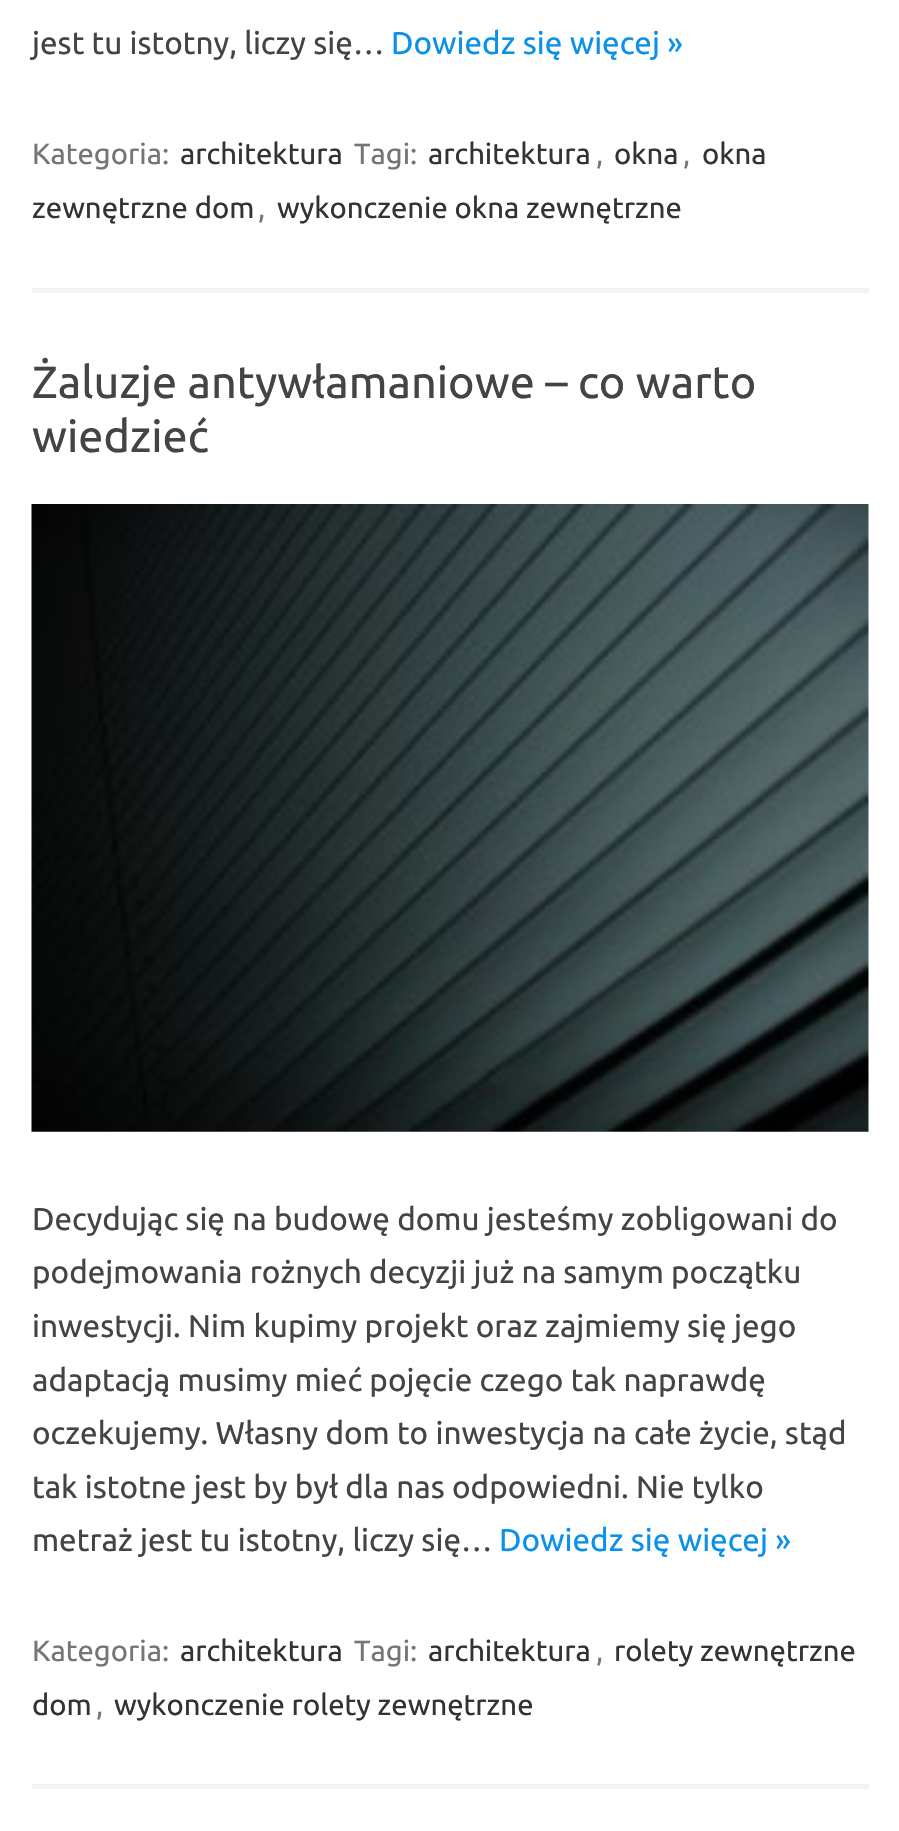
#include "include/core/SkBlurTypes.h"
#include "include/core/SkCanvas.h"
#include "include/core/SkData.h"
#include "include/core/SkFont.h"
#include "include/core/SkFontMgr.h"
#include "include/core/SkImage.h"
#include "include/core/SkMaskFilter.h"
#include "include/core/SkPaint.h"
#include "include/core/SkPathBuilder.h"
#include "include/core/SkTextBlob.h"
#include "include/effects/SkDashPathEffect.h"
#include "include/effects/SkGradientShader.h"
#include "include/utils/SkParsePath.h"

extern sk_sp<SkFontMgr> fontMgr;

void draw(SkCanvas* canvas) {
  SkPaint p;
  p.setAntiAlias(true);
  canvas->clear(SK_ColorWHITE);
  p.setColor(SkColorSetRGB(243, 243, 243));
  canvas->drawRect(SkRect::MakeLTRB(32, 288, 869, 293), p);
  canvas->drawRect(SkRect::MakeLTRB(32, 1784, 869, 1789), p);
  canvas->drawImageRect(SkImages::DeferredFromEncodedData(SkData::MakeFromFileName("images/1.png")), SkRect::MakeLTRB(31, 504, 869, 1132), SkSamplingOptions());
  SkFont font1(fontMgr->matchFamilyStyle("Ubuntu", SkFontStyle::Normal()), 31.5f);
  font1.setSubpixel(true);
  p.setColor(SkColorSetRGB(68, 68, 68));
  canvas->drawString("jest tu istotny, liczy się…", 32, 54, font1, p);
  p.setColor(SkColorSetRGB(11, 145, 234));
  canvas->drawString("Dowiedz się więcej »", 391, 54, font1, p);
  SkFont font2(fontMgr->matchFamilyStyle("Ubuntu", SkFontStyle::Normal()), 29.25f);
  font2.setSubpixel(true);
  p.setColor(SkColorSetRGB(117, 117, 117));
  canvas->drawString("Kategoria:", 32, 164, font2, p);
  p.setColor(SkColorSetRGB(51, 51, 51));
  canvas->drawString("architektura", 180, 164, font2, p);
  p.setColor(SkColorSetRGB(117, 117, 117));
  canvas->drawString("Tagi:", 354, 164, font2, p);
  p.setColor(SkColorSetRGB(51, 51, 51));
  canvas->drawString("architektura", 428, 164, font2, p);
  p.setColor(SkColorSetRGB(117, 117, 117));
  canvas->drawString(",", 596, 164, font2, p);
  p.setColor(SkColorSetRGB(51, 51, 51));
  canvas->drawString("okna", 614, 164, font2, p);
  p.setColor(SkColorSetRGB(117, 117, 117));
  canvas->drawString(",", 683, 164, font2, p);
  p.setColor(SkColorSetRGB(51, 51, 51));
  canvas->drawString("okna", 702, 164, font2, p);
  canvas->drawString("zewnętrzne dom", 32, 218, font2, p);
  p.setColor(SkColorSetRGB(117, 117, 117));
  canvas->drawString(",", 258, 218, font2, p);
  p.setColor(SkColorSetRGB(51, 51, 51));
  canvas->drawString("wykonczenie okna zewnętrzne", 277, 218, font2, p);
  SkFont font3(fontMgr->matchFamilyStyle("Ubuntu", SkFontStyle::Normal()), 45);
  font3.setSubpixel(true);
  p.setColor(SkColorSetRGB(68, 68, 68));
  canvas->drawString("Żaluzje antywłamaniowe – co warto", 32, 398, font3, p);
  canvas->drawString("wiedzieć", 32, 452, font3, p);
  canvas->drawString("Decydując się na budowę domu jesteśmy zobligowani do", 32, 1230, font1, p);
  canvas->drawString("podejmowania rożnych decyzji już na samym początku", 32, 1283, font1, p);
  canvas->drawString("inwestycji. Nim kupimy projekt oraz zajmiemy się jego", 32, 1337, font1, p);
  canvas->drawString("adaptacją musimy mieć pojęcie czego tak naprawdę", 32, 1391, font1, p);
  canvas->drawString("oczekujemy. Własny dom to inwestycja na całe życie, stąd", 32, 1444, font1, p);
  canvas->drawString("tak istotne jest by był dla nas odpowiedni. Nie tylko", 32, 1498, font1, p);
  canvas->drawString("metraż jest tu istotny, liczy się…", 32, 1551, font1, p);
  p.setColor(SkColorSetRGB(11, 145, 234));
  canvas->drawString("Dowiedz się więcej »", 499, 1551, font1, p);
  p.setColor(SkColorSetRGB(117, 117, 117));
  canvas->drawString("Kategoria:", 32, 1661, font2, p);
  p.setColor(SkColorSetRGB(51, 51, 51));
  canvas->drawString("architektura", 180, 1661, font2, p);
  p.setColor(SkColorSetRGB(117, 117, 117));
  canvas->drawString("Tagi:", 354, 1661, font2, p);
  p.setColor(SkColorSetRGB(51, 51, 51));
  canvas->drawString("architektura", 428, 1661, font2, p);
  p.setColor(SkColorSetRGB(117, 117, 117));
  canvas->drawString(",", 596, 1661, font2, p);
  p.setColor(SkColorSetRGB(51, 51, 51));
  canvas->drawString("rolety zewnętrzne", 614, 1661, font2, p);
  canvas->drawString("dom", 32, 1715, font2, p);
  p.setColor(SkColorSetRGB(117, 117, 117));
  canvas->drawString(",", 96, 1715, font2, p);
  p.setColor(SkColorSetRGB(51, 51, 51));
  canvas->drawString("wykonczenie rolety zewnętrzne", 114, 1715, font2, p);
}
